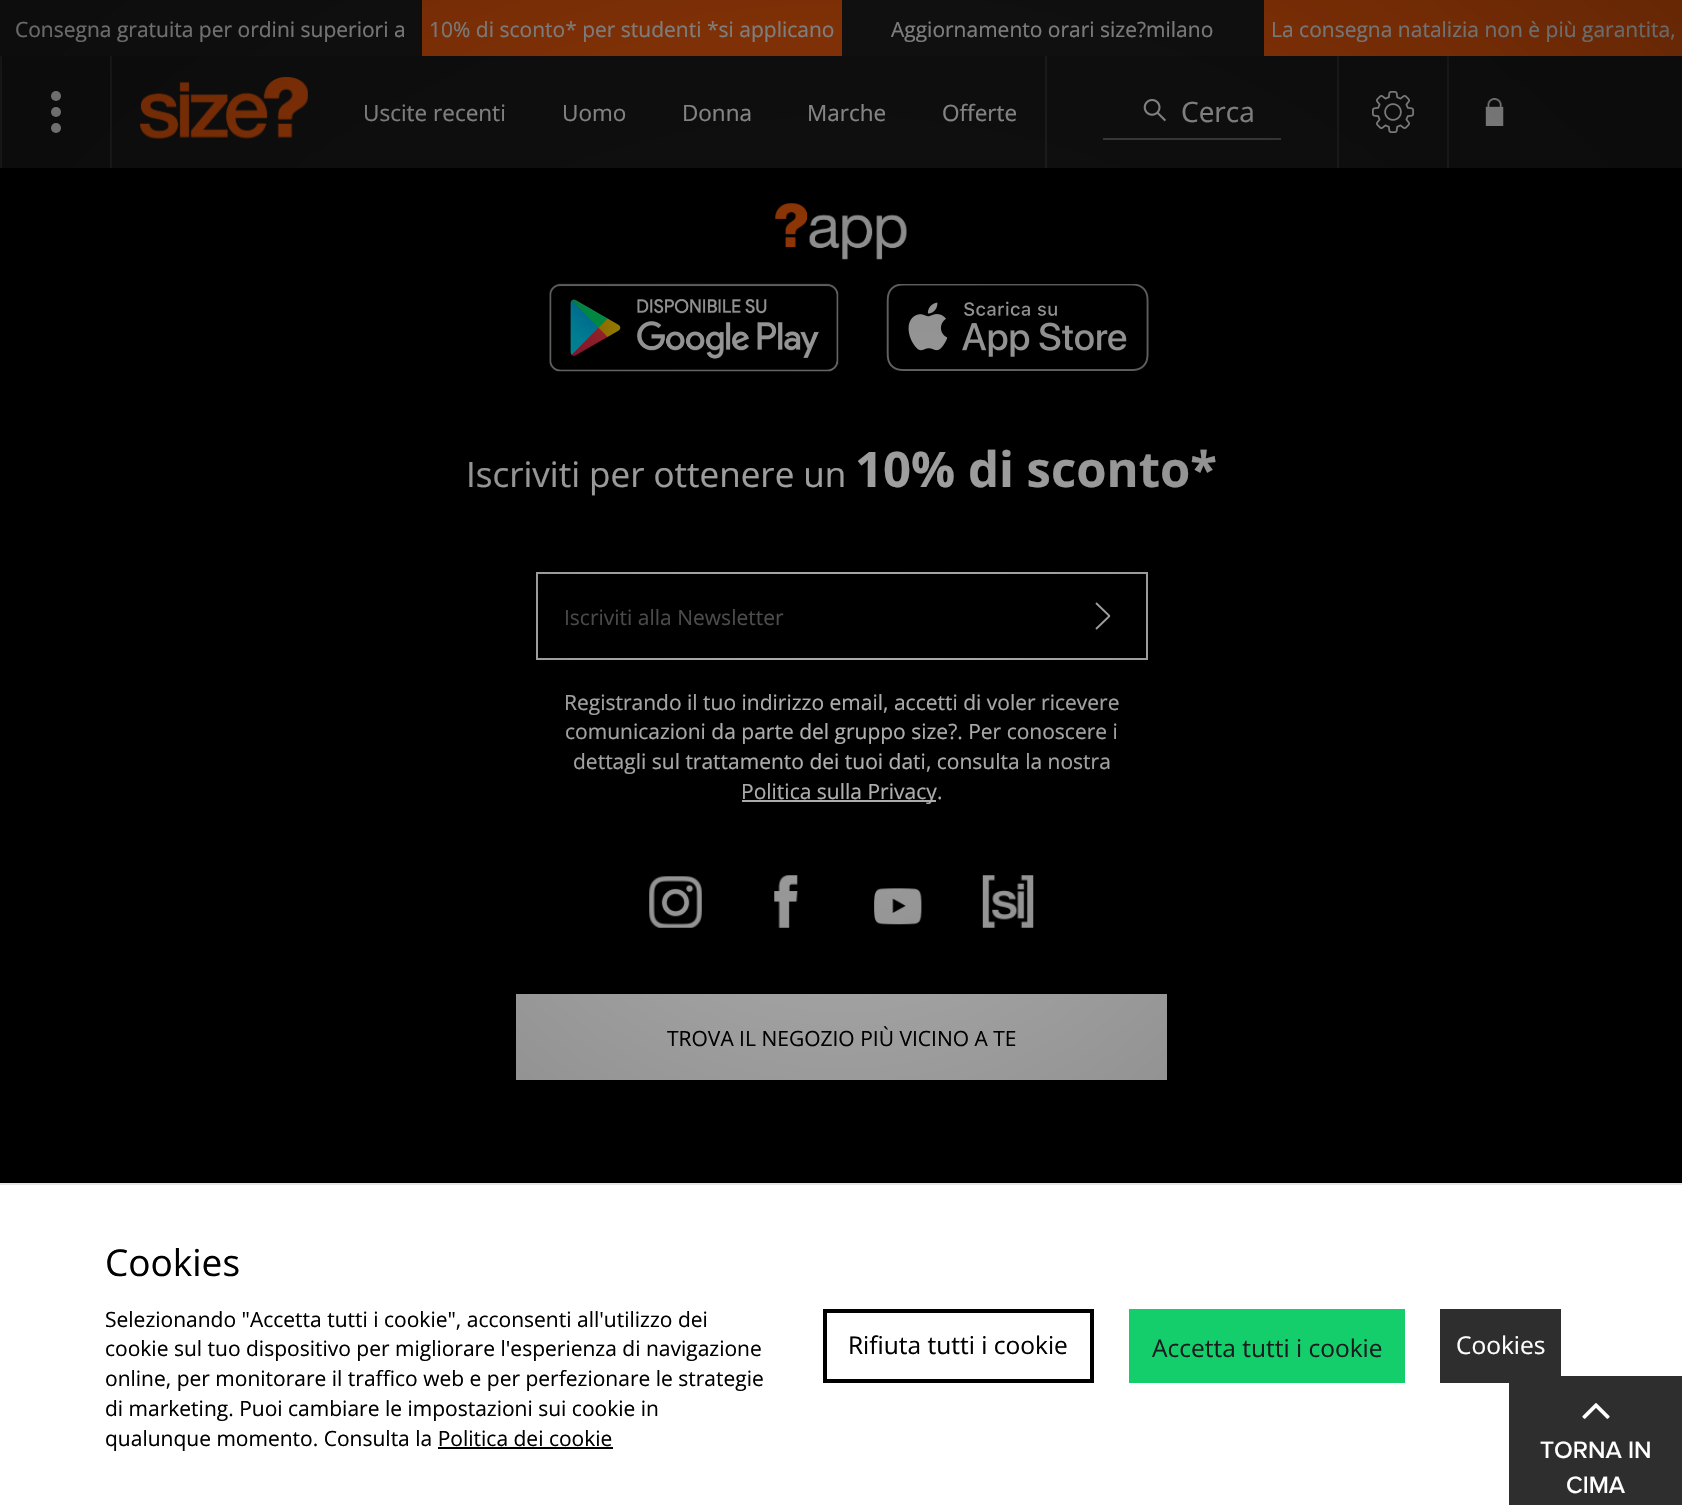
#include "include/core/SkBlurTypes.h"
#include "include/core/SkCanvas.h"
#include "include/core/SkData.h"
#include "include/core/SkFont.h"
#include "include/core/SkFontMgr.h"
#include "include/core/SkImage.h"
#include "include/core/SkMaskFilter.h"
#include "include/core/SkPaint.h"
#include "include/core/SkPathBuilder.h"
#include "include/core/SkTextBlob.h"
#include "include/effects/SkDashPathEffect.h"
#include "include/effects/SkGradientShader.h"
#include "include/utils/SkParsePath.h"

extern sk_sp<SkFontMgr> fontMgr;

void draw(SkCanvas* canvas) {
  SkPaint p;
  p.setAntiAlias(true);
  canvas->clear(SK_ColorBLACK);
  p.setColor(SkColorSetRGB(31, 31, 31));
  canvas->drawRect(SkRect::MakeLTRB(0, 0, 1264, 56), p);
  p.setColor(SkColorSetRGB(255, 96, 11));
  canvas->drawRect(SkRect::MakeLTRB(422, 0, 842, 56), p);
  canvas->drawRect(SkRect::MakeLTRB(1264, 0, 1682, 56), p);
  p.setColor(SkColorSetRGB(27, 27, 27));
  canvas->drawRect(SkRect::MakeLTRB(2, 56, 1682, 168), p);
  p.setColor(SkColorSetRGB(51, 51, 51));
  canvas->drawRect(SkRect::MakeLTRB(110, 56, 112, 168), p);
  canvas->drawRect(SkRect::MakeLTRB(0, 56, 2, 168), p);
  p.setColor(SK_ColorWHITE);
  canvas->drawCircle(56, 128, 5, p);
  canvas->drawCircle(56, 112, 5, p);
  canvas->drawCircle(56, 96, 5, p);
  canvas->drawImageRect(SkImages::DeferredFromEncodedData(SkData::MakeFromFileName("images/1.png")), SkRect::MakeLTRB(140, 77, 308, 139), SkSamplingOptions());
  p.setColor(SkColorSetRGB(51, 51, 51));
  canvas->drawRect(SkRect::MakeLTRB(1045, 56, 1047, 168), p);
  p.setColor(SkColorSetRGB(107, 107, 107));
  canvas->drawRect(SkRect::MakeLTRB(1103, 138, 1281, 140), p);
  canvas->drawImageRect(SkImages::DeferredFromEncodedData(SkData::MakeFromFileName("images/2.png")), SkRect::MakeLTRB(1143, 99, 1166, 122), SkSamplingOptions());
  p.setColor(SkColorSetRGB(51, 51, 51));
  canvas->drawRect(SkRect::MakeLTRB(1447, 56, 1449, 168), p);
  canvas->drawRect(SkRect::MakeLTRB(1337, 56, 1339, 168), p);
  canvas->drawImageRect(SkImages::DeferredFromEncodedData(SkData::MakeFromFileName("images/3.png")), SkRect::MakeLTRB(1372, 91, 1414, 133), SkSamplingOptions());
  canvas->drawImageRect(SkImages::DeferredFromEncodedData(SkData::MakeFromFileName("images/4.png")), SkRect::MakeLTRB(1485, 98, 1504, 126), SkSamplingOptions());
  canvas->drawImageRect(SkImages::DeferredFromEncodedData(SkData::MakeFromFileName("images/5.png")), SkRect::MakeLTRB(775, 203, 907, 260), SkSamplingOptions());
  canvas->drawImageRect(SkImages::DeferredFromEncodedData(SkData::MakeFromFileName("images/6.png")), SkRect::MakeLTRB(549, 283, 839, 372), SkSamplingOptions());
  canvas->drawImageRect(SkImages::DeferredFromEncodedData(SkData::MakeFromFileName("images/7.png")), SkRect::MakeLTRB(886, 284, 1149, 371), SkSamplingOptions());
  p.setStyle(SkPaint::kStroke_Style);
  p.setStrokeWidth(2);
  p.setColor(SK_ColorWHITE);
  canvas->drawRect(SkRect::MakeLTRB(537, 573, 1147, 659), p);
  p.setStrokeWidth(1.8f);
  p.setStrokeJoin(SkPaint::kBevel_Join);
  canvas->drawPath(SkPathBuilder().moveTo(1096, 629).lineTo(1109.5f, 616).lineTo(1096, 603).detach(), p);
  p.setStyle(SkPaint::kFill_Style);
  canvas->drawRect(SkRect::MakeLTRB(742, 800, 936, 802), p);
  canvas->drawImageRect(SkImages::DeferredFromEncodedData(SkData::MakeFromFileName("images/8.png")), SkRect::MakeLTRB(649, 876, 702, 928), SkSamplingOptions());
  canvas->drawImageRect(SkImages::DeferredFromEncodedData(SkData::MakeFromFileName("images/9.png")), SkRect::MakeLTRB(774, 875, 798, 928), SkSamplingOptions());
  canvas->drawImageRect(SkImages::DeferredFromEncodedData(SkData::MakeFromFileName("images/10.png")), SkRect::MakeLTRB(874, 888, 922, 925), SkSamplingOptions());
  canvas->drawImageRect(SkImages::DeferredFromEncodedData(SkData::MakeFromFileName("images/11.png")), SkRect::MakeLTRB(982, 875, 1034, 928), SkSamplingOptions());
  canvas->drawRect(SkRect::MakeLTRB(516, 994, 1167, 1080), p);
  canvas->drawRect(SkRect::MakeLTRB(0, 1185, 1682, 1505), p);
  p.setColor(SkColorSetRGB(229, 229, 229));
  canvas->drawRect(SkRect::MakeLTRB(0, 1183, 1682, 1185), p);
  p.setColor(SK_ColorBLACK);
  canvas->drawRect(SkRect::MakeLTRB(438, 1447, 613, 1449), p);
  p.setStyle(SkPaint::kStroke_Style);
  p.setStrokeWidth(4);
  p.setStrokeJoin(SkPaint::kMiter_Join);
  canvas->drawRect(SkRect::MakeLTRB(825, 1311, 1092, 1381), p);
  p.setStyle(SkPaint::kFill_Style);
  p.setColor(SkColorSetRGB(19, 206, 107));
  canvas->drawRect(SkRect::MakeLTRB(1129, 1309, 1405, 1383), p);
  p.setColor(SkColorSetRGB(46, 46, 46));
  canvas->drawRect(SkRect::MakeLTRB(1440, 1309, 1561, 1383), p);
  canvas->drawRect(SkRect::MakeLTRB(1509, 1376, 1682, 1505), p);
  canvas->drawImageRect(SkImages::DeferredFromEncodedData(SkData::MakeFromFileName("images/12.png")), SkRect::MakeLTRB(1582, 1403, 1610, 1419), SkSamplingOptions());
  SkFont font1(fontMgr->matchFamilyStyle("Open Sans", SkFontStyle::Normal()), 21);
  font1.setSubpixel(true);
  p.setColor(SK_ColorWHITE);
  canvas->drawString("Consegna gratuita per ordini superiori a", 15, 37, font1, p);
  canvas->drawString("10% di sconto* per studenti *si applicano", 429, 37, font1, p);
  canvas->drawString("Aggiornamento orari size?milano", 891, 37, font1, p);
  canvas->drawString("La consegna natalizia non è più garantita,", 1271, 37, font1, p);
  SkFont font2(fontMgr->matchFamilyStyle("Open Sans", SkFontStyle::Normal()), 22.5f);
  font2.setSubpixel(true);
  canvas->drawString("Uscite recenti", 363, 121, font2, p);
  canvas->drawString("Uomo", 562, 121, font2, p);
  canvas->drawString("Donna", 682, 121, font2, p);
  canvas->drawString("Marche", 807, 121, font2, p);
  canvas->drawString("Offerte", 942, 121, font2, p);
  SkFont font3(fontMgr->matchFamilyStyle("Open Sans", SkFontStyle::Normal()), 28);
  font3.setSubpixel(true);
  canvas->drawString("Cerca", 1181, 122, font3, p);
  SkFont font4(fontMgr->matchFamilyStyle("Open Sans", SkFontStyle::Normal()), 35);
  font4.setSubpixel(true);
  canvas->drawString("Iscriviti per ottenere un", 466, 487, font4, p);
  SkFont font5(fontMgr->matchFamilyStyle("Open Sans", SkFontStyle::Bold()), 49);
  font5.setSubpixel(true);
  canvas->drawString("10% di sconto*", 855, 487, font5, p);
  p.setColor(SkColorSetRGB(117, 117, 117));
  canvas->drawString("Iscriviti alla Newsletter", 564, 625, font1, p);
  p.setColor(SK_ColorWHITE);
  canvas->drawString("Registrando il tuo indirizzo email, accetti di voler ricevere", 564, 710, font1, p);
  canvas->drawString("comunicazioni da parte del gruppo size?. Per conoscere i", 565, 739, font1, p);
  canvas->drawString("dettagli sul trattamento dei tuoi dati, consulta la nostra", 573, 769, font1, p);
  canvas->drawString("Politica sulla Privacy", 741, 799, font1, p);
  canvas->drawString(".", 937, 799, font1, p);
  p.setColor(SK_ColorBLACK);
  canvas->drawString("TROVA IL NEGOZIO PIÙ VICINO A TE", 667, 1046, font1, p);
  {
    const SkColor colors[] = {SkColorSetARGB(77, 0, 0, 0), SkColorSetARGB(153, 0, 0, 0)};
    const float stops[] = {0, 1};
    SkMatrix m = SkMatrix::Translate(842, 753).preScale(1190, 1064);
    p.setShader(SkGradientShader::MakeRadial({0, 0}, 1, colors, stops, 2, SkTileMode::kClamp, 0, &m));
    p.setAlpha(255);
  }
  canvas->drawRect(SkRect::MakeLTRB(0, 0, 1682, 1080), p);
  SkFont font6(fontMgr->matchFamilyStyle("Open Sans", SkFontStyle::Normal()), 37);
  font6.setSubpixel(true);
  p.setShader(nullptr);
  p.setColor(SK_ColorBLACK);
  canvas->drawString("Cookies", 105, 1276, font6, p);
  canvas->drawString("Selezionando \"Accetta tutti i cookie\", acconsenti all'utilizzo dei", 105, 1327, font1, p);
  canvas->drawString("cookie sul tuo dispositivo per migliorare l'esperienza di navigazione", 105, 1356, font1, p);
  canvas->drawString("online, per monitorare il traffico web e per perfezionare le strategie", 105, 1386, font1, p);
  canvas->drawString("di marketing. Puoi cambiare le impostazioni sui cookie in", 105, 1416, font1, p);
  canvas->drawString("qualunque momento. Consulta la Politica dei cookie", 105, 1446, font1, p);
  SkFont font7(fontMgr->matchFamilyStyle("Open Sans", SkFontStyle::Normal()), 24.5f);
  font7.setSubpixel(true);
  canvas->drawString("Rifiuta tutti i cookie", 848, 1354, font7, p);
  p.setColor(SkColorSetRGB(27, 28, 30));
  canvas->drawString("Accetta tutti i cookie", 1152, 1357, font7, p);
  p.setColor(SK_ColorWHITE);
  canvas->drawString("Cookies", 1456, 1354, font7, p);
  SkFont font8(fontMgr->matchFamilyStyle("Proxima Nova", SkFontStyle(500, SkFontStyle::kNormal_Width, SkFontStyle::kUpright_Slant)), 24.5f);
  font8.setSubpixel(true);
  canvas->drawString("TORNA IN", 1540, 1458, font8, p);
  canvas->drawString("CIMA", 1566, 1493, font8, p);
}
